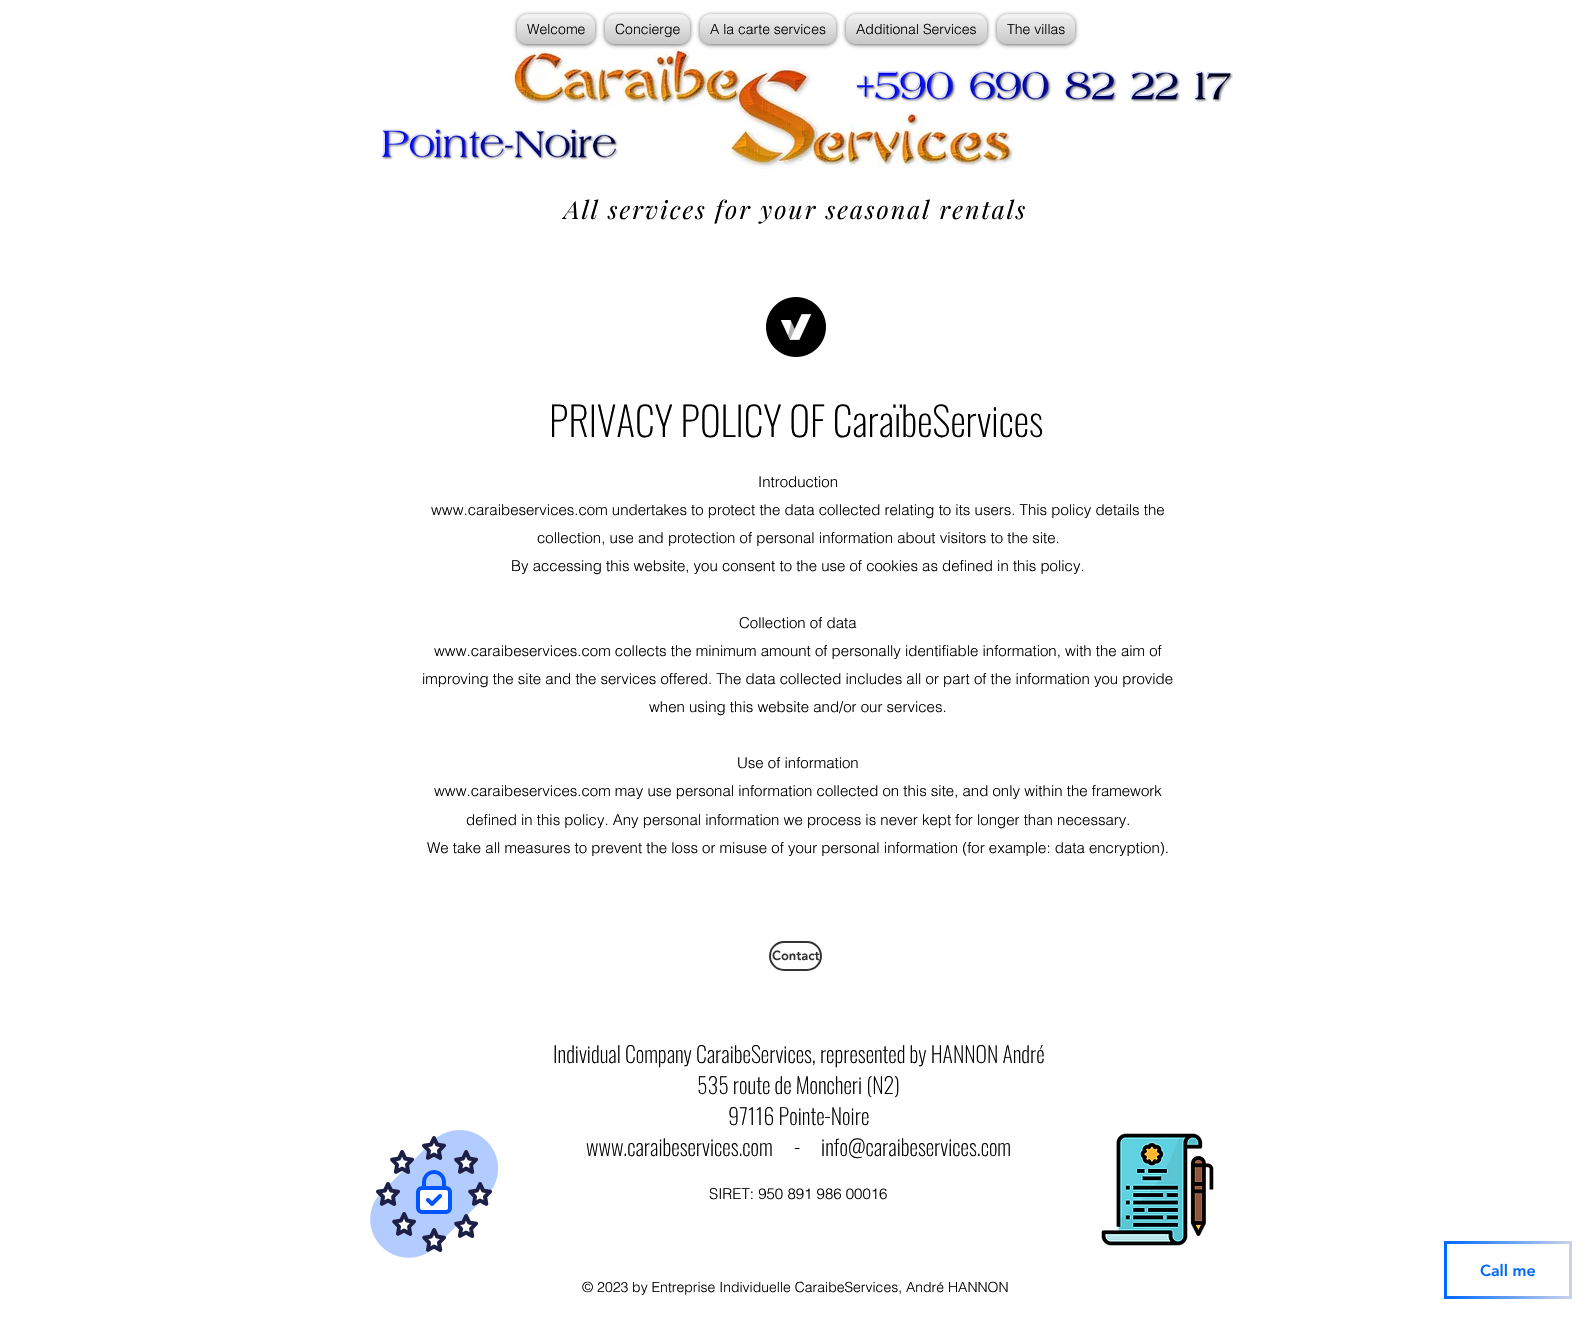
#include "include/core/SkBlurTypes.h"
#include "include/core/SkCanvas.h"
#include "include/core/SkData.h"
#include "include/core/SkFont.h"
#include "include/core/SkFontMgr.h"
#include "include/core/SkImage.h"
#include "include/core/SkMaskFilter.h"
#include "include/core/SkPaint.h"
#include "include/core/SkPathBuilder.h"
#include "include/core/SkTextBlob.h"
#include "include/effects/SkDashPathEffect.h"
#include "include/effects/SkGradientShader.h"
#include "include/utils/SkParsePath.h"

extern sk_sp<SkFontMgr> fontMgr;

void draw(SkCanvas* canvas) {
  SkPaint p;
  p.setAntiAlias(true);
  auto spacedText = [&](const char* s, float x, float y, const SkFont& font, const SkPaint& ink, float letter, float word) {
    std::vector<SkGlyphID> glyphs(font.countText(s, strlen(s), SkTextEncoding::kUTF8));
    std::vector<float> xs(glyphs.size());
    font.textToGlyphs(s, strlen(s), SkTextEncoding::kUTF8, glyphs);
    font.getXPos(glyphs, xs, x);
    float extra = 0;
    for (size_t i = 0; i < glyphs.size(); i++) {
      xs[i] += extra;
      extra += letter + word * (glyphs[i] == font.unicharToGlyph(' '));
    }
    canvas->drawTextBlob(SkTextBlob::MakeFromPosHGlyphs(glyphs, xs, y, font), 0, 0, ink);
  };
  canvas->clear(SK_ColorWHITE);
  canvas->drawImageRect(SkImages::DeferredFromEncodedData(SkData::MakeFromFileName("images/6.png")), SkRect::MakeLTRB(510, 45, 1014, 169), SkSamplingOptions());
  p.setColor(SkColorSetARGB(153, 0, 0, 0));
  p.setMaskFilter(SkMaskFilter::MakeBlur(kNormal_SkBlurStyle, 2));
  canvas->drawRoundRect(SkRect::MakeLTRB(517, 15, 595, 45), 10, 10, p);
  p.setMaskFilter(nullptr);
  p.setColor(SkColorSetRGB(241, 241, 241));
  canvas->drawRoundRect(SkRect::MakeLTRB(517, 14, 595, 44), 10, 10, p);
  canvas->drawImageRect(SkImages::DeferredFromEncodedData(SkData::MakeFromFileName("images/1.png")), SkRect::MakeLTRB(517, 18, 595, 44), SkSamplingOptions());
  p.setColor(SkColorSetARGB(153, 0, 0, 0));
  p.setMaskFilter(SkMaskFilter::MakeBlur(kNormal_SkBlurStyle, 2));
  canvas->drawRoundRect(SkRect::MakeLTRB(605, 15, 690, 45), 10, 10, p);
  p.setMaskFilter(nullptr);
  p.setColor(SkColorSetRGB(241, 241, 241));
  canvas->drawRoundRect(SkRect::MakeLTRB(605, 14, 690, 44), 10, 10, p);
  canvas->drawImageRect(SkImages::DeferredFromEncodedData(SkData::MakeFromFileName("images/2.png")), SkRect::MakeLTRB(605, 18, 690, 44), SkSamplingOptions());
  p.setColor(SkColorSetARGB(153, 0, 0, 0));
  p.setMaskFilter(SkMaskFilter::MakeBlur(kNormal_SkBlurStyle, 2));
  canvas->drawRoundRect(SkRect::MakeLTRB(700, 15, 836, 45), 10, 10, p);
  p.setMaskFilter(nullptr);
  p.setColor(SkColorSetRGB(241, 241, 241));
  canvas->drawRoundRect(SkRect::MakeLTRB(700, 14, 836, 44), 10, 10, p);
  canvas->drawImageRect(SkImages::DeferredFromEncodedData(SkData::MakeFromFileName("images/3.png")), SkRect::MakeLTRB(700, 18, 836, 44), SkSamplingOptions());
  p.setColor(SkColorSetARGB(153, 0, 0, 0));
  p.setMaskFilter(SkMaskFilter::MakeBlur(kNormal_SkBlurStyle, 2));
  canvas->drawRoundRect(SkRect::MakeLTRB(846, 15, 987, 45), 10, 10, p);
  p.setMaskFilter(nullptr);
  p.setColor(SkColorSetRGB(241, 241, 241));
  canvas->drawRoundRect(SkRect::MakeLTRB(846, 14, 987, 44), 10, 10, p);
  canvas->drawImageRect(SkImages::DeferredFromEncodedData(SkData::MakeFromFileName("images/4.png")), SkRect::MakeLTRB(846, 18, 987, 44), SkSamplingOptions());
  p.setColor(SkColorSetARGB(153, 0, 0, 0));
  p.setMaskFilter(SkMaskFilter::MakeBlur(kNormal_SkBlurStyle, 2));
  canvas->drawRoundRect(SkRect::MakeLTRB(997, 15, 1075, 45), 10, 10, p);
  p.setMaskFilter(nullptr);
  p.setColor(SkColorSetRGB(241, 241, 241));
  canvas->drawRoundRect(SkRect::MakeLTRB(997, 14, 1075, 44), 10, 10, p);
  canvas->drawImageRect(SkImages::DeferredFromEncodedData(SkData::MakeFromFileName("images/5.png")), SkRect::MakeLTRB(997, 18, 1075, 44), SkSamplingOptions());
  canvas->drawImageRect(SkImages::DeferredFromEncodedData(SkData::MakeFromFileName("images/7.png")), SkRect::MakeLTRB(855, 70, 1233, 102), SkSamplingOptions());
  canvas->drawImageRect(SkImages::DeferredFromEncodedData(SkData::MakeFromFileName("images/8.png")), SkRect::MakeLTRB(381, 128, 618, 160), SkSamplingOptions());
  canvas->drawImageRect(SkImages::DeferredFromEncodedData(SkData::MakeFromFileName("images/9.png")), SkRect::MakeLTRB(766, 297, 826, 357), SkSamplingOptions());
  p.setStyle(SkPaint::kStroke_Style);
  p.setStrokeWidth(2);
  p.setColor(SkColorSetRGB(50, 50, 50));
  canvas->drawRoundRect(SkRect::MakeLTRB(770, 942, 821, 970), 14, 14, p);
  canvas->drawImageRect(SkImages::DeferredFromEncodedData(SkData::MakeFromFileName("images/10.png")), SkRect::MakeLTRB(370, 1130, 498, 1258), SkSamplingOptions());
  canvas->drawImageRect(SkImages::DeferredFromEncodedData(SkData::MakeFromFileName("images/11.png")), SkRect::MakeLTRB(1101, 1133, 1214, 1246), SkSamplingOptions());
  canvas->drawImageRect(SkImages::DeferredFromEncodedData(SkData::MakeFromFileName("images/12.png")), SkRect::MakeLTRB(1444, 1241, 1572, 1299), SkSamplingOptions());
  SkFont font1(fontMgr->matchFamilyStyle("helvetica", SkFontStyle(300, SkFontStyle::kNormal_Width, SkFontStyle::kUpright_Slant)), 14);
  font1.setSubpixel(true);
  p.setStyle(SkPaint::kFill_Style);
  p.setColor(SK_ColorBLACK);
  canvas->drawString("Welcome", 527, 34, font1, p);
  canvas->drawString("Concierge", 615, 34, font1, p);
  canvas->drawString("A la carte services", 710, 34, font1, p);
  canvas->drawString("Additional Services", 856, 34, font1, p);
  canvas->drawString("The villas", 1007, 34, font1, p);
  SkFont font2(fontMgr->matchFamilyStyle("Playfair Display", SkFontStyle::Italic()), 25);
  font2.setSubpixel(true);
  spacedText("All services for your seasonal rentals", 564, 219, font2, p, 2, 0);
  SkFont font3(fontMgr->matchFamilyStyle("Oswald", SkFontStyle(200, SkFontStyle::kNormal_Width, SkFontStyle::kUpright_Slant)), 40);
  font3.setSubpixel(true);
  canvas->drawString("PRIVACY POLICY OF CaraïbeServices", 549, 437, font3, p);
  SkFont font4(fontMgr->matchFamilyStyle("helvetica", SkFontStyle(300, SkFontStyle::kNormal_Width, SkFontStyle::kUpright_Slant)), 15);
  font4.setSubpixel(true);
  canvas->drawString("Introduction", 758, 487, font4, p);
  canvas->drawString("www.caraibeservices.com undertakes to protect the data collected relating to its users. This policy details the", 431, 515, font4, p);
  canvas->drawString("collection, use and protection of personal information about visitors to the site.", 537, 543, font4, p);
  canvas->drawString("By accessing this website, you consent to the use of cookies as defined in this policy.", 511, 571, font4, p);
  canvas->drawString("Collection of data", 739, 628, font4, p);
  canvas->drawString("www.caraibeservices.com collects the minimum amount of personally identifiable information, with the aim of", 434, 656, font4, p);
  canvas->drawString("improving the site and the services offered. The data collected includes all or part of the information you provide", 422, 684, font4, p);
  canvas->drawString("when using this website and/or our services.", 649, 712, font4, p);
  canvas->drawString("Use of information", 737, 768, font4, p);
  canvas->drawString("www.caraibeservices.com may use personal information collected on this site, and only within the framework", 434, 796, font4, p);
  canvas->drawString("defined in this policy. Any personal information we process is never kept for longer than necessary.", 466, 825, font4, p);
  canvas->drawString("We take all measures to prevent the loss or misuse of your personal information (for example: data encryption).", 427, 853, font4, p);
  SkFont font5(fontMgr->matchFamilyStyle("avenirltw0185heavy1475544", SkFontStyle(900, SkFontStyle::kNormal_Width, SkFontStyle::kUpright_Slant)), 13);
  font5.setSubpixel(true);
  p.setColor(SkColorSetRGB(50, 50, 50));
  canvas->drawString("Contact", 772, 960, font5, p);
  SkFont font6(fontMgr->matchFamilyStyle("Oswald", SkFontStyle(200, SkFontStyle::kNormal_Width, SkFontStyle::kUpright_Slant)), 22);
  font6.setSubpixel(true);
  p.setColor(SK_ColorBLACK);
  canvas->drawString("Individual Company CaraibeServices, represented by HANNON André", 553, 1063, font6, p);
  canvas->drawString("535 route de Moncheri (N2)", 697, 1094, font6, p);
  canvas->drawString("97116 Pointe-Noire", 728, 1125, font6, p);
  canvas->drawString("www.caraibeservices.com", 586, 1156, font6, p);
  canvas->drawString("-", 794, 1156, font6, p);
  canvas->drawString("info@caraibeservices.com", 821, 1156, font6, p);
  canvas->drawString("SIRET: 950 891 986 00016", 709, 1199, font4, p);
  canvas->drawString("© 2023 by Entreprise Individuelle CaraibeServices, André HANNON", 582, 1292, font1, p);
  SkFont font7(fontMgr->matchFamilyStyle("avenirltw0185heavy1475544", SkFontStyle(900, SkFontStyle::kNormal_Width, SkFontStyle::kUpright_Slant)), 16);
  font7.setSubpixel(true);
  p.setColor(SkColorSetRGB(0, 105, 255));
  canvas->drawString("Call me", 1480, 1276, font7, p);
}
